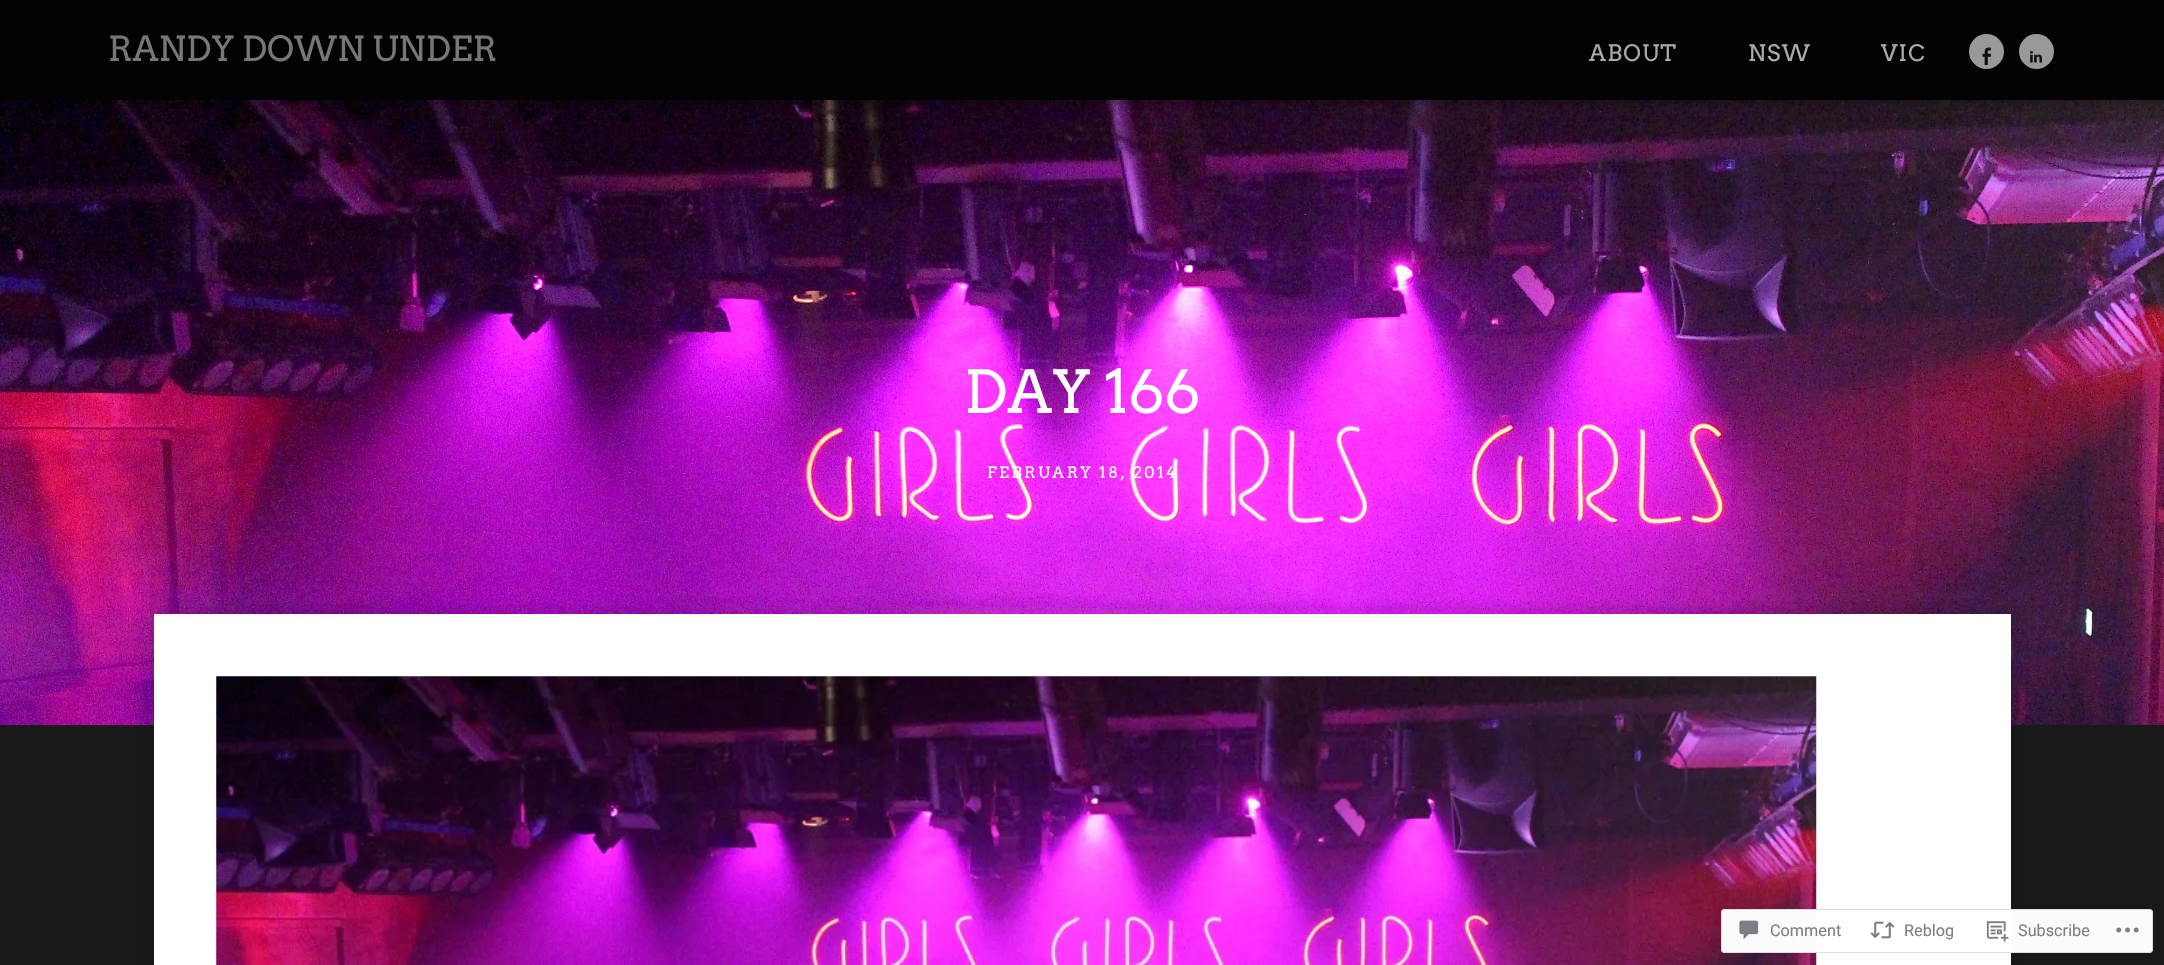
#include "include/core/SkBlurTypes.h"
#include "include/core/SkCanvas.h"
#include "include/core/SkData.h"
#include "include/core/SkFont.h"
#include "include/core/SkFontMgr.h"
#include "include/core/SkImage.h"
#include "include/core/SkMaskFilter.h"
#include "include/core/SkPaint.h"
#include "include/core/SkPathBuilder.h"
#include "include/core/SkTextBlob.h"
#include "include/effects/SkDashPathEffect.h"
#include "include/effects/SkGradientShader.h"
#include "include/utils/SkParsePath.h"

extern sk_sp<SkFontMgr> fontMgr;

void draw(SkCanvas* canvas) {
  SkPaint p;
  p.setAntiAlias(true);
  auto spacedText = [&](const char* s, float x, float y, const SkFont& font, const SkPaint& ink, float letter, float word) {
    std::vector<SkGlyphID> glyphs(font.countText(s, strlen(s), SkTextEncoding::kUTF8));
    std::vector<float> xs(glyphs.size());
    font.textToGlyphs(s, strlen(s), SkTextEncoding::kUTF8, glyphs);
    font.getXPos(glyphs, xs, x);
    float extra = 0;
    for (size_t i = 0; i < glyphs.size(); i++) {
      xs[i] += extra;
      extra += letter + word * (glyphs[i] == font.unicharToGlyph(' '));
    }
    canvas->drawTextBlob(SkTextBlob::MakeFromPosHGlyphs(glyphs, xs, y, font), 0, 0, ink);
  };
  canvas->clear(SkColorSetRGB(25, 25, 25));
  canvas->drawImageRect(SkImages::DeferredFromEncodedData(SkData::MakeFromFileName("images/3.png")), SkRect::MakeLTRB(0, 100, 2164, 725), SkSamplingOptions());
  p.setColor(SkColorSetARGB(51, 0, 0, 0));
  p.setMaskFilter(SkMaskFilter::MakeBlur(kNormal_SkBlurStyle, 4));
  canvas->drawRect(SkRect::MakeLTRB(0, 4, 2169, 104), p);
  p.setMaskFilter(nullptr);
  p.setColor(SkColorSetRGB(3, 3, 3));
  canvas->drawRect(SkRect::MakeLTRB(0, 0, 2164, 100), p);
  p.setColor(SkColorSetRGB(153, 153, 153));
  canvas->drawCircle(1986.5f, 51.5f, 17.5f, p);
  canvas->drawImageRect(SkImages::DeferredFromEncodedData(SkData::MakeFromFileName("images/1.png")), SkRect::MakeLTRB(1982, 47, 1991, 65), SkSamplingOptions());
  canvas->drawCircle(2036.5f, 51.5f, 17.5f, p);
  canvas->drawImageRect(SkImages::DeferredFromEncodedData(SkData::MakeFromFileName("images/2.png")), SkRect::MakeLTRB(2030, 51, 2042, 63), SkSamplingOptions());
  p.setColor(SkColorSetARGB(26, 0, 0, 0));
  p.setMaskFilter(SkMaskFilter::MakeBlur(kNormal_SkBlurStyle, 5));
  canvas->drawRect(SkRect::MakeLTRB(146, 606, 2019, 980), p);
  p.setMaskFilter(nullptr);
  p.setColor(SK_ColorWHITE);
  canvas->drawRect(SkRect::MakeLTRB(154, 614, 2011, 965), p);
  canvas->drawImageRect(SkImages::DeferredFromEncodedData(SkData::MakeFromFileName("images/4.png")), SkRect::MakeLTRB(216, 676, 1817, 965), SkSamplingOptions());
  p.setColor(SkColorSetARGB(250, 255, 255, 255));
  canvas->drawRoundRect(SkRect::MakeLTRB(1721, 909, 2153, 953), 4, 4, p);
  p.setStyle(SkPaint::kStroke_Style);
  p.setStrokeWidth(1);
  p.setColor(SkColorSetARGB(250, 220, 220, 222));
  canvas->drawRoundRect(SkRect::MakeLTRB(1721.5f, 909.5f, 2152.5f, 952.5f), 3.5f, 3.5f, p);
  canvas->drawImageRect(SkImages::DeferredFromEncodedData(SkData::MakeFromFileName("images/5.png")), SkRect::MakeLTRB(1739, 920, 1759, 940), SkSamplingOptions());
  canvas->drawImageRect(SkImages::DeferredFromEncodedData(SkData::MakeFromFileName("images/6.png")), SkRect::MakeLTRB(1870, 921, 1895, 939), SkSamplingOptions());
  canvas->drawImageRect(SkImages::DeferredFromEncodedData(SkData::MakeFromFileName("images/7.png")), SkRect::MakeLTRB(1986, 921, 2009, 942), SkSamplingOptions());
  canvas->drawImageRect(SkImages::DeferredFromEncodedData(SkData::MakeFromFileName("images/8.png")), SkRect::MakeLTRB(2116, 927, 2139, 933), SkSamplingOptions());
  SkFont font1(fontMgr->matchFamilyStyle("Arvo", SkFontStyle::Normal()), 34.5f);
  font1.setSubpixel(true);
  p.setStyle(SkPaint::kFill_Style);
  p.setColor(SkColorSetRGB(119, 119, 119));
  canvas->drawString("RANDY DOWN UNDER", 108, 61, font1, p);
  SkFont font2(fontMgr->matchFamilyStyle("Arvo", SkFontStyle::Normal()), 22.5f);
  font2.setSubpixel(true);
  p.setColor(SkColorSetRGB(170, 170, 170));
  spacedText("ABOUT", 1589, 61, font2, p, 1.25f, 0);
  spacedText("NSW", 1748, 61, font2, p, 1.25f, 0);
  spacedText("VIC", 1881, 61, font2, p, 1.25f, 0);
  SkFont font3(fontMgr->matchFamilyStyle("Arvo", SkFontStyle::Normal()), 59);
  font3.setSubpixel(true);
  p.setColor(SK_ColorWHITE);
  canvas->drawString("DAY 166", 964, 413, font3, p);
  SkFont font4(fontMgr->matchFamilyStyle("Arvo", SkFontStyle::Normal()), 15.7f);
  font4.setSubpixel(true);
  spacedText("FEBRUARY 18, 2014", 987, 478, font4, p, 2.5f, 0);
  SkFont font5(fontMgr->matchFamilyStyle("Roboto", SkFontStyle::Normal()), 16.25f);
  font5.setSubpixel(true);
  p.setColor(SkColorSetRGB(123, 127, 132));
  canvas->drawString("Comment", 1770, 936, font5, p);
  canvas->drawString("Reblog", 1904, 936, font5, p);
  canvas->drawString("Subscribe", 2018, 936, font5, p);
}
